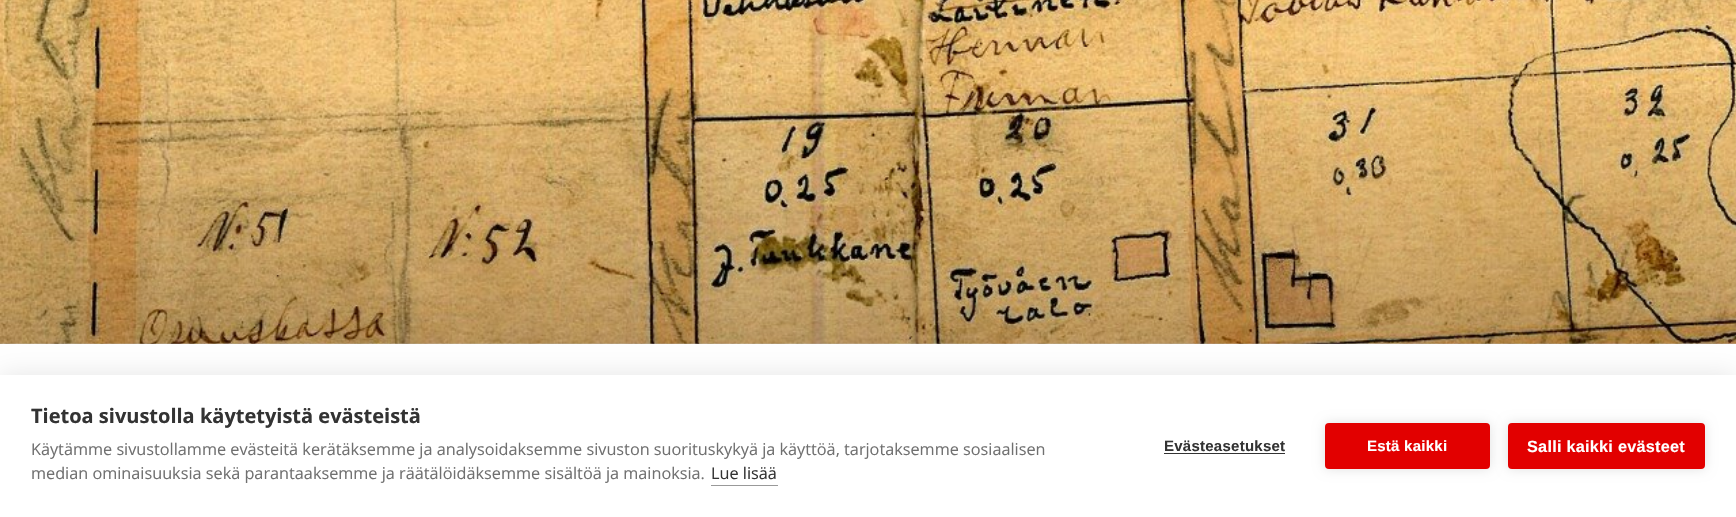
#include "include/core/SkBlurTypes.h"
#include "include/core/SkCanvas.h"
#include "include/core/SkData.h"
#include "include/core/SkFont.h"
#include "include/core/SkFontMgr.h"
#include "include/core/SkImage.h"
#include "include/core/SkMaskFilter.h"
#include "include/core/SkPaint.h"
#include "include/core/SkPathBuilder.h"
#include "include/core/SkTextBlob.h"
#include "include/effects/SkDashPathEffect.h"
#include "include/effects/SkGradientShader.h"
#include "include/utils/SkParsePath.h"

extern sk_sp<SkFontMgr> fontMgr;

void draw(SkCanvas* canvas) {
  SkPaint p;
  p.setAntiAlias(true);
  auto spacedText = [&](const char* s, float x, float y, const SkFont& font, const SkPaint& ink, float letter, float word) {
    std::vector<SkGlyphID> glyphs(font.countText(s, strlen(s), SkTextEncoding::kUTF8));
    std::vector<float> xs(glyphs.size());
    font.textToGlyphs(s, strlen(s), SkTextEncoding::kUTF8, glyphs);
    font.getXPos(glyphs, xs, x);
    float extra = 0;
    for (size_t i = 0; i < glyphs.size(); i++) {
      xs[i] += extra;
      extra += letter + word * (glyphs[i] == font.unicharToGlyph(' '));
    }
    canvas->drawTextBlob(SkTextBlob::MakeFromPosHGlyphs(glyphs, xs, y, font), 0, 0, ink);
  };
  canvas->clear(SK_ColorWHITE);
  canvas->drawImageRect(SkImages::DeferredFromEncodedData(SkData::MakeFromFileName("images/1.png")), SkRect::MakeLTRB(0, 0, 1736, 344), SkSamplingOptions());
  {
    const SkColor colors[] = {SkColorSetARGB(56, 0, 0, 0), SkColorSetARGB(0, 0, 0, 0)};
    const float stops[] = {0, 0.4f};
    const SkPoint ends[] = {{868, 344}, {868, -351}};
    p.setShader(SkGradientShader::MakeLinear(ends, colors, stops, 2, SkTileMode::kClamp));
    p.setAlpha(255);
  }
  canvas->drawRect(SkRect::MakeLTRB(0, 93, 1736, 344), p);
  p.setShader(nullptr);
  p.setColor(SkColorSetARGB(26, 0, 0, 0));
  p.setMaskFilter(SkMaskFilter::MakeBlur(kNormal_SkBlurStyle, 12.5f));
  canvas->drawRect(SkRect::MakeLTRB(0, 375, 1736, 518), p);
  p.setMaskFilter(nullptr);
  p.setColor(SK_ColorWHITE);
  canvas->drawRect(SkRect::MakeLTRB(0, 375, 1736, 517), p);
  p.setColor(SkColorSetRGB(153, 153, 153));
  canvas->drawRect(SkRect::MakeLTRB(711, 485, 778, 486), p);
  p.setColor(SkColorSetRGB(51, 51, 51));
  canvas->drawRect(SkRect::MakeLTRB(1164, 453, 1285, 454), p);
  p.setColor(SkColorSetARGB(31, 0, 0, 0));
  p.setMaskFilter(SkMaskFilter::MakeBlur(kNormal_SkBlurStyle, 6));
  canvas->drawRoundRect(SkRect::MakeLTRB(1325, 423, 1490, 469), 4, 4, p);
  p.setMaskFilter(nullptr);
  p.setColor(SkColorSetRGB(226, 0, 0));
  canvas->drawRoundRect(SkRect::MakeLTRB(1325, 423, 1490, 469), 4, 4, p);
  p.setColor(SkColorSetARGB(31, 0, 0, 0));
  p.setMaskFilter(SkMaskFilter::MakeBlur(kNormal_SkBlurStyle, 6));
  canvas->drawRoundRect(SkRect::MakeLTRB(1508, 423, 1705, 469), 4, 4, p);
  p.setMaskFilter(nullptr);
  p.setColor(SkColorSetRGB(226, 0, 0));
  canvas->drawRoundRect(SkRect::MakeLTRB(1508, 423, 1705, 469), 4, 4, p);
  SkFont font1(fontMgr->matchFamilyStyle("Open Sans", SkFontStyle::Bold()), 20);
  font1.setSubpixel(true);
  p.setColor(SkColorSetRGB(51, 51, 51));
  canvas->drawString("Tietoa sivustolla käytetyistä evästeistä", 31, 423, font1, p);
  SkFont font2(fontMgr->matchFamilyStyle("Open Sans", SkFontStyle::Normal()), 16.25f);
  font2.setSubpixel(true);
  p.setColor(SkColorSetRGB(112, 112, 112));
  canvas->drawString("Käytämme sivustollamme evästeitä kerätäksemme ja analysoidaksemme sivuston suorituskykyä ja käyttöä, tarjotaksemme sosiaalisen", 31, 455, font2, p);
  canvas->drawString("median ominaisuuksia sekä parantaaksemme ja räätälöidäksemme sisältöä ja mainoksia.", 31, 479, font2, p);
  p.setColor(SkColorSetRGB(51, 51, 51));
  canvas->drawString("Lue lisää", 711, 479, font2, p);
  SkFont font3(fontMgr->matchFamilyStyle("Liberation Sans", SkFontStyle::Bold()), 15);
  font3.setSubpixel(true);
  spacedText("Evästeasetukset", 1164, 451, font3, p, 0.25f, 0);
  p.setColor(SK_ColorWHITE);
  spacedText("Estä kaikki", 1367, 451, font3, p, 0.25f, 0);
  SkFont font4(fontMgr->matchFamilyStyle("Liberation Sans", SkFontStyle::Bold()), 16.25f);
  font4.setSubpixel(true);
  spacedText("Salli kaikki evästeet", 1527, 452, font4, p, 0.25f, 0);
}
